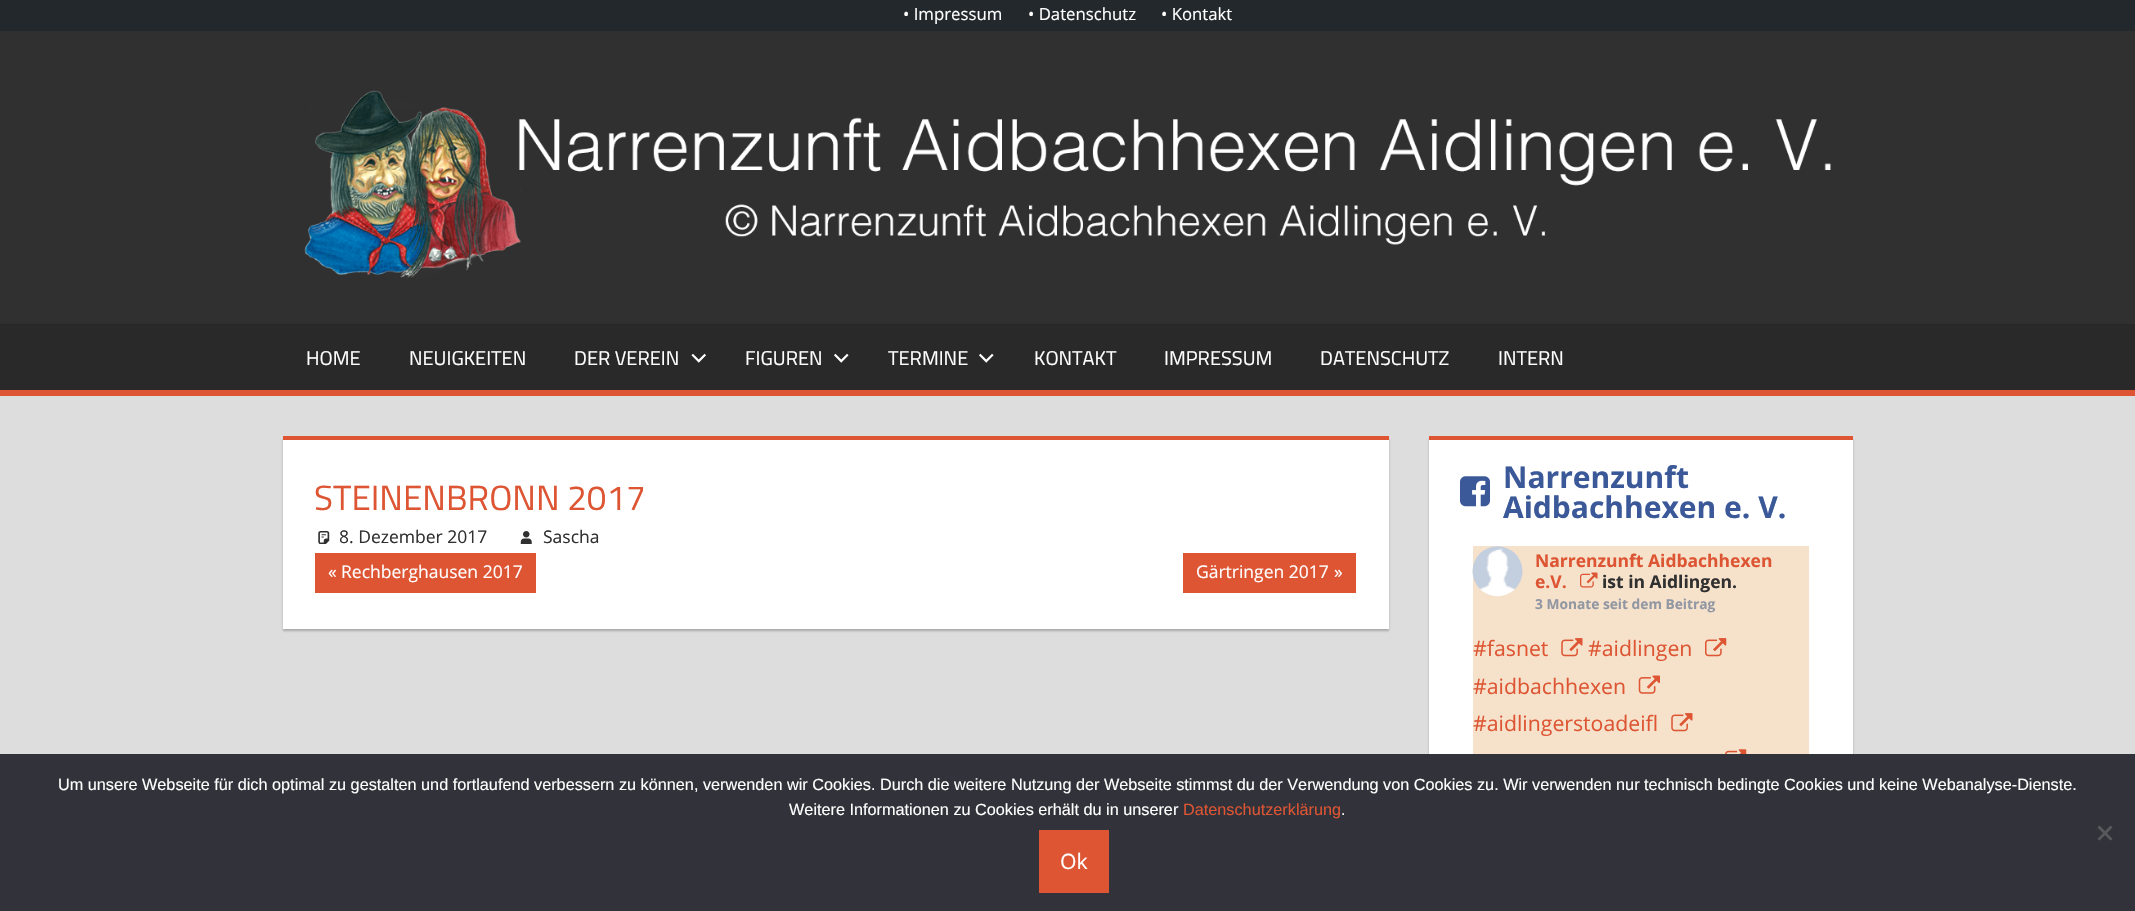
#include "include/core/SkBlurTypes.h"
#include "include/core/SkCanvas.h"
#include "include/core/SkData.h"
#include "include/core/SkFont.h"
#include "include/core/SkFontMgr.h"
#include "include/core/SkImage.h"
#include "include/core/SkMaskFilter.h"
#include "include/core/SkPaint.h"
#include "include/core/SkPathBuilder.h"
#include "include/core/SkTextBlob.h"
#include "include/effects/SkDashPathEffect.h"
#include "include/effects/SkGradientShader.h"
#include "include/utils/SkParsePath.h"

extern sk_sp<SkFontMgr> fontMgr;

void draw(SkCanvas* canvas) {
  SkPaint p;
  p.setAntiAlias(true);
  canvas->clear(SkColorSetRGB(221, 221, 221));
  p.setColor(SkColorSetRGB(35, 40, 45));
  canvas->drawRect(SkRect::MakeLTRB(0, 0, 2135, 31), p);
  p.setColor(SkColorSetRGB(48, 48, 48));
  canvas->drawRect(SkRect::MakeLTRB(0, 31, 2135, 324), p);
  canvas->drawImageRect(SkImages::DeferredFromEncodedData(SkData::MakeFromFileName("images/1.png")), SkRect::MakeLTRB(304, 90, 1831, 279), SkSamplingOptions());
  p.setColor(SkColorSetRGB(41, 41, 41));
  canvas->drawRect(SkRect::MakeLTRB(0, 325, 2135, 390), p);
  p.setColor(SkColorSetRGB(39, 39, 39));
  canvas->drawRect(SkRect::MakeLTRB(0, 324, 2135, 325), p);
  p.setColor(SkColorSetRGB(221, 85, 51));
  canvas->drawRect(SkRect::MakeLTRB(0, 390, 2135, 396), p);
  canvas->drawImageRect(SkImages::DeferredFromEncodedData(SkData::MakeFromFileName("images/2.png")), SkRect::MakeLTRB(691, 353, 706, 363), SkSamplingOptions());
  canvas->drawImageRect(SkImages::DeferredFromEncodedData(SkData::MakeFromFileName("images/3.png")), SkRect::MakeLTRB(834, 353, 849, 363), SkSamplingOptions());
  canvas->drawImageRect(SkImages::DeferredFromEncodedData(SkData::MakeFromFileName("images/3.png")), SkRect::MakeLTRB(979, 353, 994, 363), SkSamplingOptions());
  p.setColor(SkColorSetRGB(170, 170, 170));
  p.setMaskFilter(SkMaskFilter::MakeBlur(kNormal_SkBlurStyle, 1));
  canvas->drawRect(SkRect::MakeLTRB(283, 439, 1389, 631), p);
  p.setMaskFilter(nullptr);
  p.setColor(SK_ColorWHITE);
  canvas->drawRect(SkRect::MakeLTRB(283, 440, 1389, 629), p);
  p.setColor(SkColorSetRGB(221, 85, 51));
  canvas->drawRect(SkRect::MakeLTRB(283, 436, 1389, 440), p);
  canvas->drawImageRect(SkImages::DeferredFromEncodedData(SkData::MakeFromFileName("images/4.png")), SkRect::MakeLTRB(318, 531, 330, 544), SkSamplingOptions());
  canvas->drawImageRect(SkImages::DeferredFromEncodedData(SkData::MakeFromFileName("images/5.png")), SkRect::MakeLTRB(520, 531, 532, 544), SkSamplingOptions());
  canvas->drawRect(SkRect::MakeLTRB(315, 553, 536, 593), p);
  canvas->drawRect(SkRect::MakeLTRB(1183, 553, 1356, 593), p);
  p.setColor(SkColorSetRGB(170, 170, 170));
  p.setMaskFilter(SkMaskFilter::MakeBlur(kNormal_SkBlurStyle, 1));
  canvas->drawRect(SkRect::MakeLTRB(1429, 439, 1853, 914), p);
  p.setMaskFilter(nullptr);
  p.setColor(SK_ColorWHITE);
  canvas->drawRect(SkRect::MakeLTRB(1429, 440, 1853, 754), p);
  p.setColor(SkColorSetRGB(221, 85, 51));
  canvas->drawRect(SkRect::MakeLTRB(1429, 436, 1853, 440), p);
  canvas->drawImageRect(SkImages::DeferredFromEncodedData(SkData::MakeFromFileName("images/6.png")), SkRect::MakeLTRB(1460, 476, 1490, 507), SkSamplingOptions());
  p.setColor(SkColorSetRGB(246, 225, 202));
  canvas->drawRect(SkRect::MakeLTRB(1473, 546, 1809, 754), p);
  canvas->drawImageRect(SkImages::DeferredFromEncodedData(SkData::MakeFromFileName("images/7.png")), SkRect::MakeLTRB(1472, 546, 1523, 597), SkSamplingOptions());
  canvas->drawImageRect(SkImages::DeferredFromEncodedData(SkData::MakeFromFileName("images/8.png")), SkRect::MakeLTRB(1580, 572, 1598, 588), SkSamplingOptions());
  canvas->drawImageRect(SkImages::DeferredFromEncodedData(SkData::MakeFromFileName("images/9.png")), SkRect::MakeLTRB(1561, 638, 1583, 657), SkSamplingOptions());
  canvas->drawImageRect(SkImages::DeferredFromEncodedData(SkData::MakeFromFileName("images/10.png")), SkRect::MakeLTRB(1705, 638, 1727, 657), SkSamplingOptions());
  canvas->drawImageRect(SkImages::DeferredFromEncodedData(SkData::MakeFromFileName("images/11.png")), SkRect::MakeLTRB(1638, 675, 1660, 694), SkSamplingOptions());
  canvas->drawImageRect(SkImages::DeferredFromEncodedData(SkData::MakeFromFileName("images/9.png")), SkRect::MakeLTRB(1671, 713, 1693, 732), SkSamplingOptions());
  canvas->drawImageRect(SkImages::DeferredFromEncodedData(SkData::MakeFromFileName("images/12.png")), SkRect::MakeLTRB(1725, 749, 1747, 754), SkSamplingOptions());
  p.setColor(SkColorSetRGB(50, 50, 58));
  canvas->drawRect(SkRect::MakeLTRB(0, 754, 2135, 911), p);
  p.setColor(SkColorSetRGB(89, 89, 93));
  canvas->drawPath(SkPathBuilder().moveTo(2110.5f, 825.5f).lineTo(2112.5f, 827.5f).lineTo(2099.5f, 840.5f).lineTo(2097.5f, 839).close().detach(), p);
  canvas->drawPath(SkPathBuilder().moveTo(2097.5f, 827.5f).lineTo(2099.5f, 825.5f).lineTo(2112.5f, 839).lineTo(2110.5f, 840.5f).close().detach(), p);
  p.setColor(SkColorSetRGB(221, 85, 51));
  canvas->drawRect(SkRect::MakeLTRB(1039, 830, 1109, 893), p);
  SkFont font1(fontMgr->matchFamilyStyle("Open Sans", SkFontStyle::Normal()), 16.75f);
  font1.setSubpixel(true);
  p.setColor(SK_ColorWHITE);
  canvas->drawString("• Impressum", 903, 20, font1, p);
  canvas->drawString("• Datenschutz", 1028, 20, font1, p);
  canvas->drawString("• Kontakt", 1161, 20, font1, p);
  SkFont font2(fontMgr->matchFamilyStyle("Titillium Web", SkFontStyle::Normal()), 20);
  font2.setSubpixel(true);
  canvas->drawString("HOME", 306, 365, font2, p);
  canvas->drawString("NEUIGKEITEN", 409, 365, font2, p);
  canvas->drawString("DER VEREIN", 574, 365, font2, p);
  canvas->drawString("FIGUREN", 745, 365, font2, p);
  canvas->drawString("TERMINE", 888, 365, font2, p);
  canvas->drawString("KONTAKT", 1034, 365, font2, p);
  canvas->drawString("IMPRESSUM", 1164, 365, font2, p);
  canvas->drawString("DATENSCHUTZ", 1320, 365, font2, p);
  canvas->drawString("INTERN", 1498, 365, font2, p);
  SkFont font3(fontMgr->matchFamilyStyle("Titillium Web", SkFontStyle::Normal()), 35);
  font3.setSubpixel(true);
  p.setColor(SkColorSetRGB(221, 85, 51));
  canvas->drawString("STEINENBRONN 2017", 314, 510, font3, p);
  SkFont font4(fontMgr->matchFamilyStyle("Open Sans", SkFontStyle::Normal()), 17.5f);
  font4.setSubpixel(true);
  p.setColor(SkColorSetRGB(48, 48, 48));
  canvas->drawString("8. Dezember 2017", 339, 543, font4, p);
  canvas->drawString("Sascha", 543, 543, font4, p);
  p.setColor(SK_ColorWHITE);
  canvas->drawString("«", 328, 578, font4, p);
  canvas->drawString("Rechberghausen 2017", 341, 578, font4, p);
  canvas->drawString("Gärtringen 2017", 1196, 578, font4, p);
  canvas->drawString("»", 1334, 578, font4, p);
  SkFont font5(fontMgr->matchFamilyStyle("Open Sans", SkFontStyle::Bold()), 30);
  font5.setSubpixel(true);
  p.setColor(SkColorSetRGB(59, 89, 152));
  canvas->drawString("Narrenzunft", 1503, 488, font5, p);
  canvas->drawString("Aidbachhexen e. V.", 1503, 518, font5, p);
  SkFont font6(fontMgr->matchFamilyStyle("Open Sans", SkFontStyle::Bold()), 17.5f);
  font6.setSubpixel(true);
  p.setColor(SkColorSetRGB(221, 85, 51));
  canvas->drawString("Narrenzunft Aidbachhexen", 1535, 567, font6, p);
  canvas->drawString("e.V.", 1535, 588, font6, p);
  p.setColor(SkColorSetRGB(48, 48, 48));
  canvas->drawString("ist in Aidlingen.", 1602, 588, font6, p);
  SkFont font7(fontMgr->matchFamilyStyle("Open Sans", SkFontStyle::Bold()), 13.75f);
  font7.setSubpixel(true);
  p.setColor(SkColorSetRGB(145, 151, 163));
  canvas->drawString("3 Monate seit dem Beitrag", 1535, 609, font7, p);
  SkFont font8(fontMgr->matchFamilyStyle("Open Sans", SkFontStyle::Normal()), 21.25f);
  font8.setSubpixel(true);
  p.setColor(SkColorSetRGB(221, 85, 51));
  canvas->drawString("#fasnet", 1473, 656, font8, p);
  canvas->drawString("#aidlingen", 1588, 656, font8, p);
  canvas->drawString("#aidbachhexen", 1473, 694, font8, p);
  canvas->drawString("#aidlingerstoadeifl", 1473, 731, font8, p);
  SkFont font9(fontMgr->matchFamilyStyle("Liberation Sans", SkFontStyle::Normal()), 16.25f);
  font9.setSubpixel(true);
  p.setColor(SK_ColorWHITE);
  canvas->drawString("Um unsere Webseite für dich optimal zu gestalten und fortlaufend verbessern zu können, verwenden wir Cookies. Durch die weitere Nutzung der Webseite stimmst du der Verwendung von Cookies zu. Wir verwenden nur technisch bedingte Cookies und keine Webanalyse-Dienste.", 58, 790, font9, p);
  canvas->drawString("Weitere Informationen zu Cookies erhält du in unserer", 789, 815, font9, p);
  p.setColor(SkColorSetRGB(221, 85, 51));
  canvas->drawString("Datenschutzerklärung", 1183, 815, font9, p);
  p.setColor(SK_ColorWHITE);
  canvas->drawString(".", 1341, 815, font9, p);
  canvas->drawString("Ok", 1060, 869, font8, p);
}
